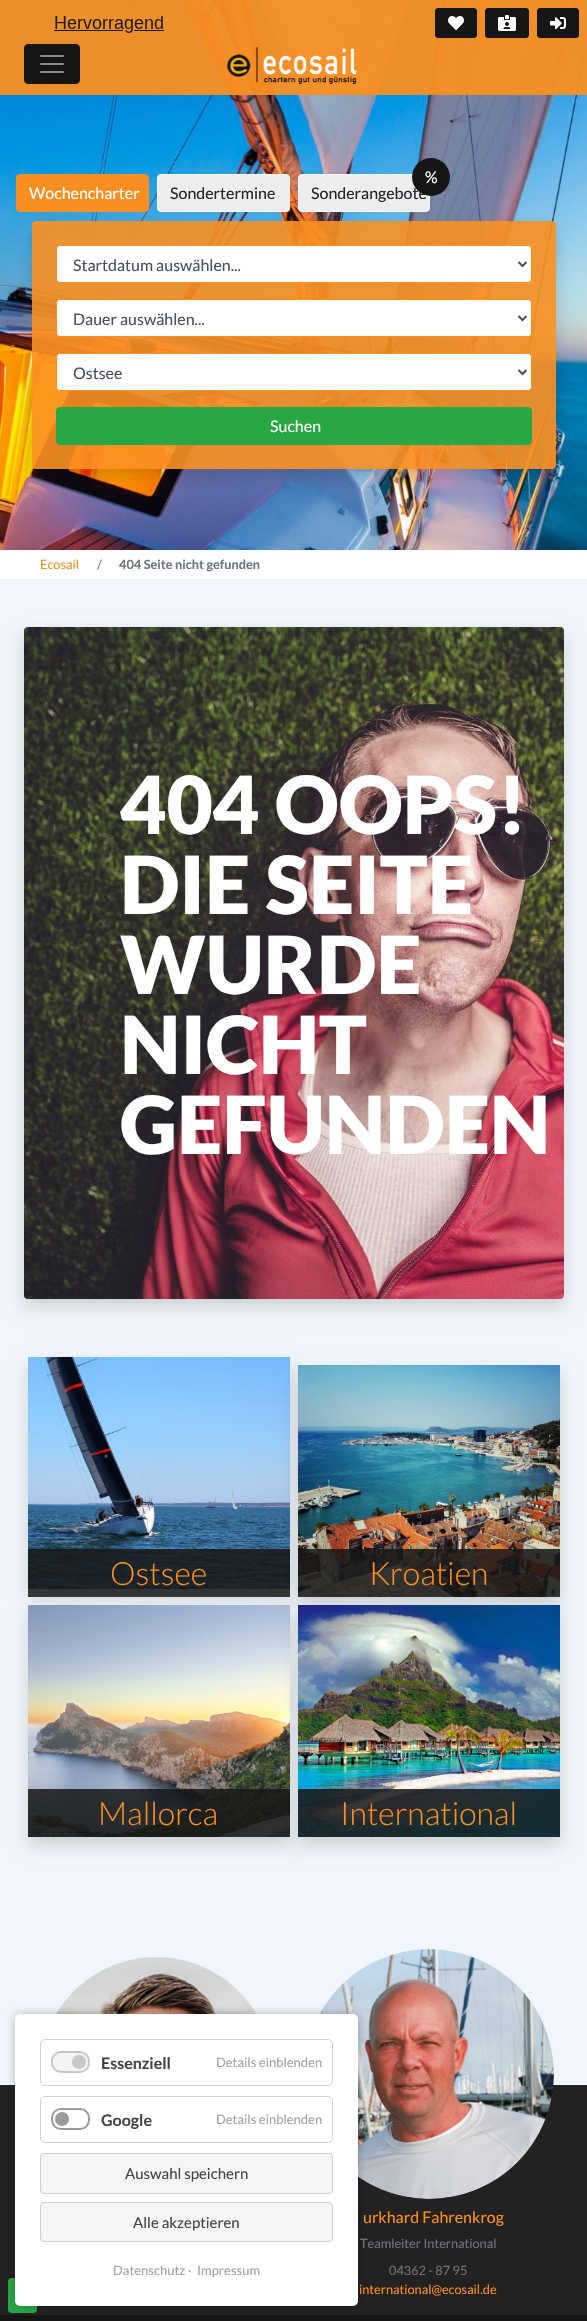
#include "include/core/SkBlurTypes.h"
#include "include/core/SkCanvas.h"
#include "include/core/SkData.h"
#include "include/core/SkFont.h"
#include "include/core/SkFontMgr.h"
#include "include/core/SkImage.h"
#include "include/core/SkMaskFilter.h"
#include "include/core/SkPaint.h"
#include "include/core/SkPathBuilder.h"
#include "include/core/SkTextBlob.h"
#include "include/effects/SkDashPathEffect.h"
#include "include/effects/SkGradientShader.h"
#include "include/utils/SkParsePath.h"

extern sk_sp<SkFontMgr> fontMgr;

void draw(SkCanvas* canvas) {
  SkPaint p;
  p.setAntiAlias(true);
  canvas->clear(SkColorSetRGB(240, 246, 251));
  canvas->drawImageRect(SkImages::DeferredFromEncodedData(SkData::MakeFromFileName("images/1.png")), SkRect::MakeLTRB(0, 0, 587, 550), SkSamplingOptions());
  p.setColor(SkColorSetARGB(242, 249, 143, 33));
  canvas->drawRect(SkRect::MakeLTRB(0, 0, 587, 95), p);
  canvas->drawImageRect(SkImages::DeferredFromEncodedData(SkData::MakeFromFileName("images/2.png")), SkRect::MakeLTRB(227, 47, 357, 85), SkSamplingOptions());
  canvas->drawImageRect(SkImages::DeferredFromEncodedData(SkData::MakeFromFileName("images/3.png")), SkRect::MakeLTRB(53, 16, 165, 33), SkSamplingOptions());
  p.setColor(SkColorSetRGB(22, 22, 22));
  canvas->drawRoundRect(SkRect::MakeLTRB(435.5f, 8.5f, 476.5f, 37.5f), 2.5f, 2.5f, p);
  p.setStyle(SkPaint::kStroke_Style);
  p.setStrokeWidth(1);
  canvas->drawRoundRect(SkRect::MakeLTRB(435.5f, 8.5f, 476.5f, 37.5f), 2.5f, 2.5f, p);
  canvas->drawImageRect(SkImages::DeferredFromEncodedData(SkData::MakeFromFileName("images/4.png")), SkRect::MakeLTRB(448, 16, 464, 30), SkSamplingOptions());
  p.setStyle(SkPaint::kFill_Style);
  canvas->drawRoundRect(SkRect::MakeLTRB(485.5f, 8.5f, 528.5f, 37.5f), 2.5f, 2.5f, p);
  p.setStyle(SkPaint::kStroke_Style);
  canvas->drawRoundRect(SkRect::MakeLTRB(485.5f, 8.5f, 528.5f, 37.5f), 2.5f, 2.5f, p);
  canvas->drawImageRect(SkImages::DeferredFromEncodedData(SkData::MakeFromFileName("images/5.png")), SkRect::MakeLTRB(498, 15, 516, 31), SkSamplingOptions());
  p.setStyle(SkPaint::kFill_Style);
  canvas->drawRoundRect(SkRect::MakeLTRB(537.5f, 8.5f, 578.5f, 37.5f), 2.5f, 2.5f, p);
  p.setStyle(SkPaint::kStroke_Style);
  canvas->drawRoundRect(SkRect::MakeLTRB(537.5f, 8.5f, 578.5f, 37.5f), 2.5f, 2.5f, p);
  canvas->drawImageRect(SkImages::DeferredFromEncodedData(SkData::MakeFromFileName("images/6.png")), SkRect::MakeLTRB(550, 17, 566, 30), SkSamplingOptions());
  canvas->save();
  canvas->clipPath(SkPathBuilder(SkPathFillType::kEvenOdd).moveTo(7, 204).lineTo(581, 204).lineTo(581, 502).lineTo(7, 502).close().moveTo(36, 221).lineTo(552, 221).cubicTo(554, 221, 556, 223, 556, 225).lineTo(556, 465).cubicTo(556, 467, 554, 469, 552, 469).lineTo(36, 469).cubicTo(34, 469, 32, 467, 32, 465).lineTo(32, 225).cubicTo(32, 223, 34, 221, 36, 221).close().detach(), true);
  p.setStyle(SkPaint::kFill_Style);
  p.setColor(SkColorSetARGB(38, 0, 0, 0));
  p.setMaskFilter(SkMaskFilter::MakeBlur(kNormal_SkBlurStyle, 8));
  canvas->drawRoundRect(SkRect::MakeLTRB(32, 229, 556, 477), 4, 4, p);
  p.setMaskFilter(nullptr);
  canvas->restore();
  p.setColor(SkColorSetRGB(249, 143, 33));
  canvas->drawRoundRect(SkRect::MakeLTRB(16.5f, 174.5f, 148.5f, 211.5f), 3.5f, 3.5f, p);
  p.setStyle(SkPaint::kStroke_Style);
  canvas->drawRoundRect(SkRect::MakeLTRB(16.5f, 174.5f, 148.5f, 211.5f), 3.5f, 3.5f, p);
  p.setStyle(SkPaint::kFill_Style);
  p.setColor(SkColorSetRGB(237, 237, 237));
  canvas->drawRoundRect(SkRect::MakeLTRB(157.5f, 174.5f, 289.5f, 211.5f), 3.5f, 3.5f, p);
  p.setStyle(SkPaint::kStroke_Style);
  p.setColor(SkColorSetRGB(248, 249, 250));
  canvas->drawRoundRect(SkRect::MakeLTRB(157.5f, 174.5f, 289.5f, 211.5f), 3.5f, 3.5f, p);
  p.setStyle(SkPaint::kFill_Style);
  p.setColor(SkColorSetRGB(237, 237, 237));
  canvas->drawRoundRect(SkRect::MakeLTRB(298.5f, 174.5f, 429.5f, 211.5f), 3.5f, 3.5f, p);
  p.setStyle(SkPaint::kStroke_Style);
  p.setColor(SkColorSetRGB(248, 249, 250));
  canvas->drawRoundRect(SkRect::MakeLTRB(298.5f, 174.5f, 429.5f, 211.5f), 3.5f, 3.5f, p);
  p.setStyle(SkPaint::kFill_Style);
  p.setColor(SkColorSetARGB(230, 249, 143, 33));
  canvas->drawRoundRect(SkRect::MakeLTRB(32, 221, 556, 469), 4, 4, p);
  p.setColor(SK_ColorWHITE);
  canvas->drawRoundRect(SkRect::MakeLTRB(56.5f, 245.5f, 531.5f, 282.5f), 3.5f, 3.5f, p);
  p.setStyle(SkPaint::kStroke_Style);
  p.setColor(SkColorSetRGB(249, 143, 33));
  canvas->drawRoundRect(SkRect::MakeLTRB(56.5f, 245.5f, 531.5f, 282.5f), 3.5f, 3.5f, p);
  p.setStrokeWidth(2);
  p.setColor(SkColorSetRGB(73, 80, 87));
  canvas->drawPath(SkPathBuilder().moveTo(518.5f, 262).lineTo(522.5f, 266).lineTo(526.5f, 262).detach(), p);
  p.setStyle(SkPaint::kFill_Style);
  p.setColor(SK_ColorWHITE);
  canvas->drawRoundRect(SkRect::MakeLTRB(56.5f, 299.5f, 531.5f, 336.5f), 3.5f, 3.5f, p);
  p.setStyle(SkPaint::kStroke_Style);
  p.setStrokeWidth(1);
  p.setColor(SkColorSetRGB(249, 143, 33));
  canvas->drawRoundRect(SkRect::MakeLTRB(56.5f, 299.5f, 531.5f, 336.5f), 3.5f, 3.5f, p);
  p.setStrokeWidth(2);
  p.setColor(SkColorSetRGB(73, 80, 87));
  canvas->drawPath(SkPathBuilder().moveTo(518.5f, 316).lineTo(522.5f, 320).lineTo(526.5f, 316).detach(), p);
  p.setStyle(SkPaint::kFill_Style);
  p.setColor(SK_ColorWHITE);
  canvas->drawRoundRect(SkRect::MakeLTRB(56.5f, 353.5f, 531.5f, 390.5f), 3.5f, 3.5f, p);
  p.setStyle(SkPaint::kStroke_Style);
  p.setStrokeWidth(1);
  p.setColor(SkColorSetRGB(249, 143, 33));
  canvas->drawRoundRect(SkRect::MakeLTRB(56.5f, 353.5f, 531.5f, 390.5f), 3.5f, 3.5f, p);
  p.setStrokeWidth(2);
  p.setColor(SkColorSetRGB(73, 80, 87));
  canvas->drawPath(SkPathBuilder().moveTo(518.5f, 370).lineTo(522.5f, 374).lineTo(526.5f, 370).detach(), p);
  p.setStyle(SkPaint::kFill_Style);
  p.setColor(SkColorSetRGB(40, 167, 69));
  canvas->drawRoundRect(SkRect::MakeLTRB(56.5f, 407.5f, 531.5f, 444.5f), 3.5f, 3.5f, p);
  p.setStyle(SkPaint::kStroke_Style);
  p.setStrokeWidth(1);
  canvas->drawRoundRect(SkRect::MakeLTRB(56.5f, 407.5f, 531.5f, 444.5f), 3.5f, 3.5f, p);
  p.setStyle(SkPaint::kFill_Style);
  p.setColor(SkColorSetRGB(22, 22, 22));
  canvas->drawRoundRect(SkRect::MakeLTRB(24.5f, 44.5f, 79.5f, 83.5f), 3.5f, 3.5f, p);
  p.setStyle(SkPaint::kStroke_Style);
  canvas->drawRoundRect(SkRect::MakeLTRB(24.5f, 44.5f, 79.5f, 83.5f), 3.5f, 3.5f, p);
  canvas->drawImageRect(SkImages::DeferredFromEncodedData(SkData::MakeFromFileName("images/7.png")), SkRect::MakeLTRB(40, 55, 64, 73), SkSamplingOptions());
  p.setStyle(SkPaint::kFill_Style);
  p.setColor(SK_ColorWHITE);
  canvas->drawRect(SkRect::MakeLTRB(0, 550, 587, 579), p);
  p.setColor(SkColorSetARGB(38, 0, 0, 0));
  p.setMaskFilter(SkMaskFilter::MakeBlur(kNormal_SkBlurStyle, 8));
  canvas->drawRect(SkRect::MakeLTRB(24, 635, 564, 1307), p);
  p.setMaskFilter(nullptr);
  canvas->drawImageRect(SkImages::DeferredFromEncodedData(SkData::MakeFromFileName("images/8.png")), SkRect::MakeLTRB(24, 627, 564, 1299), SkSamplingOptions());
  p.setMaskFilter(SkMaskFilter::MakeBlur(kNormal_SkBlurStyle, 8));
  canvas->drawRect(SkRect::MakeLTRB(28, 1365, 290, 1597), p);
  p.setMaskFilter(nullptr);
  canvas->drawImageRect(SkImages::DeferredFromEncodedData(SkData::MakeFromFileName("images/9.png")), SkRect::MakeLTRB(28, 1357, 290, 1589), SkSamplingOptions());
  p.setColor(SkColorSetARGB(217, 22, 22, 22));
  canvas->drawRect(SkRect::MakeLTRB(28, 1549, 290, 1597), p);
  p.setColor(SkColorSetARGB(38, 0, 0, 0));
  p.setMaskFilter(SkMaskFilter::MakeBlur(kNormal_SkBlurStyle, 8));
  canvas->drawRect(SkRect::MakeLTRB(298, 1373, 560, 1605), p);
  p.setMaskFilter(nullptr);
  canvas->drawImageRect(SkImages::DeferredFromEncodedData(SkData::MakeFromFileName("images/10.png")), SkRect::MakeLTRB(298, 1365, 560, 1597), SkSamplingOptions());
  p.setColor(SkColorSetARGB(217, 22, 22, 22));
  canvas->drawRect(SkRect::MakeLTRB(298, 1549, 560, 1597), p);
  p.setColor(SkColorSetARGB(38, 0, 0, 0));
  p.setMaskFilter(SkMaskFilter::MakeBlur(kNormal_SkBlurStyle, 8));
  canvas->drawRect(SkRect::MakeLTRB(28, 1613, 290, 1845), p);
  p.setMaskFilter(nullptr);
  canvas->drawImageRect(SkImages::DeferredFromEncodedData(SkData::MakeFromFileName("images/11.png")), SkRect::MakeLTRB(28, 1605, 290, 1837), SkSamplingOptions());
  p.setColor(SkColorSetARGB(217, 22, 22, 22));
  canvas->drawRect(SkRect::MakeLTRB(28, 1789, 290, 1837), p);
  p.setColor(SkColorSetARGB(38, 0, 0, 0));
  p.setMaskFilter(SkMaskFilter::MakeBlur(kNormal_SkBlurStyle, 8));
  canvas->drawRect(SkRect::MakeLTRB(298, 1613, 560, 1845), p);
  p.setMaskFilter(nullptr);
  canvas->drawImageRect(SkImages::DeferredFromEncodedData(SkData::MakeFromFileName("images/12.png")), SkRect::MakeLTRB(298, 1605, 560, 1837), SkSamplingOptions());
  p.setColor(SkColorSetARGB(217, 22, 22, 22));
  canvas->drawRect(SkRect::MakeLTRB(298, 1789, 560, 1837), p);
  p.setColor(SkColorSetRGB(22, 22, 22));
  canvas->drawRect(SkRect::MakeLTRB(0, 2315, 587, 2321), p);
  p.setColor(SkColorSetRGB(36, 33, 33));
  canvas->drawRect(SkRect::MakeLTRB(0, 2085, 587, 2315), p);
  p.setColor(SkColorSetRGB(40, 167, 69));
  canvas->drawRoundRect(SkRect::MakeLTRB(8, 2278, 37, 2313), 4, 4, p);
  canvas->drawImageRect(SkImages::DeferredFromEncodedData(SkData::MakeFromFileName("images/13.png")), SkRect::MakeLTRB(56, 1957, 257, 2014), SkSamplingOptions());
  canvas->drawImageRect(SkImages::DeferredFromEncodedData(SkData::MakeFromFileName("images/14.png")), SkRect::MakeLTRB(319, 1949, 554, 2199), SkSamplingOptions());
  p.setColor(SkColorSetARGB(64, 0, 0, 0));
  p.setMaskFilter(SkMaskFilter::MakeBlur(kNormal_SkBlurStyle, 5));
  canvas->drawRoundRect(SkRect::MakeLTRB(15, 2014, 358, 2306), 5, 5, p);
  p.setMaskFilter(nullptr);
  p.setColor(SK_ColorWHITE);
  canvas->drawRoundRect(SkRect::MakeLTRB(15, 2014, 358, 2306), 5, 5, p);
  p.setStyle(SkPaint::kStroke_Style);
  p.setColor(SkColorSetRGB(208, 208, 208));
  canvas->drawRoundRect(SkRect::MakeLTRB(40.5f, 2039.5f, 332.5f, 2085.5f), 4.5f, 4.5f, p);
  p.setStyle(SkPaint::kFill_Style);
  p.setColor(SkColorSetRGB(244, 244, 244));
  canvas->drawRoundRect(SkRect::MakeLTRB(52, 2052, 89, 2072), 9, 9, p);
  p.setStyle(SkPaint::kStroke_Style);
  p.setStrokeWidth(2);
  p.setColor(SkColorSetRGB(200, 199, 197));
  canvas->drawRoundRect(SkRect::MakeLTRB(52, 2052, 89, 2072), 9, 9, p);
  p.setStyle(SkPaint::kFill_Style);
  canvas->drawCircle(79, 2062, 7, p);
  p.setStyle(SkPaint::kStroke_Style);
  p.setStrokeWidth(1);
  p.setColor(SkColorSetRGB(208, 208, 208));
  canvas->drawRoundRect(SkRect::MakeLTRB(40.5f, 2096.5f, 332.5f, 2142.5f), 4.5f, 4.5f, p);
  p.setStrokeWidth(2);
  p.setColor(SkColorSetRGB(156, 155, 153));
  canvas->drawRoundRect(SkRect::MakeLTRB(52, 2109, 89, 2129), 9, 9, p);
  p.setStyle(SkPaint::kFill_Style);
  canvas->drawCircle(62, 2119, 7, p);
  p.setColor(SkColorSetRGB(245, 245, 245));
  canvas->drawRoundRect(SkRect::MakeLTRB(40.5f, 2153.5f, 332.5f, 2193.5f), 3.5f, 3.5f, p);
  p.setStyle(SkPaint::kStroke_Style);
  p.setStrokeWidth(1);
  p.setColor(SkColorSetRGB(207, 207, 207));
  canvas->drawRoundRect(SkRect::MakeLTRB(40.5f, 2153.5f, 332.5f, 2193.5f), 3.5f, 3.5f, p);
  p.setStyle(SkPaint::kFill_Style);
  p.setColor(SkColorSetRGB(245, 245, 245));
  canvas->drawRoundRect(SkRect::MakeLTRB(40.5f, 2202.5f, 332.5f, 2241.5f), 3.5f, 3.5f, p);
  p.setStyle(SkPaint::kStroke_Style);
  p.setColor(SkColorSetRGB(207, 207, 207));
  canvas->drawRoundRect(SkRect::MakeLTRB(40.5f, 2202.5f, 332.5f, 2241.5f), 3.5f, 3.5f, p);
  SkFont font1(fontMgr->matchFamilyStyle("Lato", SkFontStyle::Normal()), 16);
  font1.setSubpixel(true);
  p.setStyle(SkPaint::kFill_Style);
  p.setColor(SK_ColorWHITE);
  canvas->drawString("Wochencharter", 29, 199, font1, p);
  p.setColor(SkColorSetRGB(33, 37, 41));
  canvas->drawString("Sondertermine", 170, 199, font1, p);
  canvas->drawString("Sonderangebote", 311, 199, font1, p);
  p.setColor(SkColorSetRGB(22, 22, 22));
  canvas->drawCircle(431, 177, 19, p);
  p.setColor(SK_ColorWHITE);
  canvas->drawString("%", 425, 183, font1, p);
  p.setColor(SkColorSetRGB(73, 80, 87));
  canvas->drawString("Startdatum auswählen...", 73, 271, font1, p);
  canvas->drawString("Dauer auswählen...", 73, 325, font1, p);
  canvas->drawString("Ostsee", 73, 379, font1, p);
  p.setColor(SK_ColorWHITE);
  canvas->drawString("Suchen", 270, 432, font1, p);
  SkFont font2(fontMgr->matchFamilyStyle("Lato", SkFontStyle::Normal()), 12.75f);
  font2.setSubpixel(true);
  p.setColor(SkColorSetRGB(249, 143, 33));
  canvas->drawString("Ecosail", 40, 569, font2, p);
  p.setColor(SkColorSetRGB(108, 117, 125));
  canvas->drawString("/", 97, 569, font2, p);
  SkFont font3(fontMgr->matchFamilyStyle("Lato", SkFontStyle::Bold()), 12.75f);
  font3.setSubpixel(true);
  canvas->drawString("404 Seite nicht gefunden", 119, 569, font3, p);
  SkFont font4(fontMgr->matchFamilyStyle("Lato", SkFontStyle(900, SkFontStyle::kNormal_Width, SkFontStyle::kUpright_Slant)), 80);
  font4.setSubpixel(true);
  p.setColor(SK_ColorWHITE);
  canvas->drawString("404 OOPS!", 120, 834, font4, p);
  canvas->drawString("DIE SEITE", 120, 914, font4, p);
  canvas->drawString("WURDE", 120, 994, font4, p);
  canvas->drawString("NICHT", 120, 1074, font4, p);
  canvas->drawString("GEFUNDEN", 120, 1154, font4, p);
  SkFont font5(fontMgr->matchFamilyStyle("Lato", SkFontStyle(300, SkFontStyle::kNormal_Width, SkFontStyle::kUpright_Slant)), 32);
  font5.setSubpixel(true);
  p.setColor(SkColorSetRGB(249, 143, 33));
  canvas->drawString("Ostsee", 110, 1585, font5, p);
  canvas->drawString("Kroatien", 369, 1585, font5, p);
  canvas->drawString("Mallorca", 98, 1825, font5, p);
  canvas->drawString("International", 340, 1825, font5, p);
  canvas->drawString("urkhard Fahrenkrog", 363, 2223, font1, p);
  p.setColor(SkColorSetRGB(108, 117, 125));
  canvas->drawString("Teamleiter International", 360, 2248, font2, p);
  canvas->drawString("04362 - 87 95", 389, 2275, font2, p);
  p.setColor(SkColorSetRGB(249, 143, 33));
  canvas->drawString("international@ecosail.de", 359, 2294, font2, p);
  SkFont font6(fontMgr->matchFamilyStyle("Lato", SkFontStyle::Bold()), 16);
  font6.setSubpixel(true);
  p.setColor(SkColorSetRGB(68, 68, 68));
  canvas->drawString("Essenziell", 101, 2069, font6, p);
  SkFont font7(fontMgr->matchFamilyStyle("Lato", SkFontStyle::Normal()), 13);
  font7.setSubpixel(true);
  p.setColor(SkColorSetRGB(162, 162, 162));
  canvas->drawString("Details einblenden", 216, 2067, font7, p);
  p.setColor(SkColorSetRGB(68, 68, 68));
  canvas->drawString("Google", 101, 2126, font6, p);
  p.setColor(SkColorSetRGB(162, 162, 162));
  canvas->drawString("Details einblenden", 216, 2124, font7, p);
  SkFont font8(fontMgr->matchFamilyStyle("Lato", SkFontStyle::Normal()), 15);
  font8.setSubpixel(true);
  p.setColor(SkColorSetRGB(68, 68, 68));
  canvas->drawString("Auswahl speichern", 125, 2179, font8, p);
  canvas->drawString("Alle akzeptieren", 133, 2228, font8, p);
  p.setColor(SkColorSetRGB(162, 162, 162));
  canvas->drawString("Datenschutz", 113, 2275, font7, p);
  canvas->drawString("·", 188, 2275, font7, p);
  canvas->drawString("Impressum", 197, 2275, font7, p);
}
